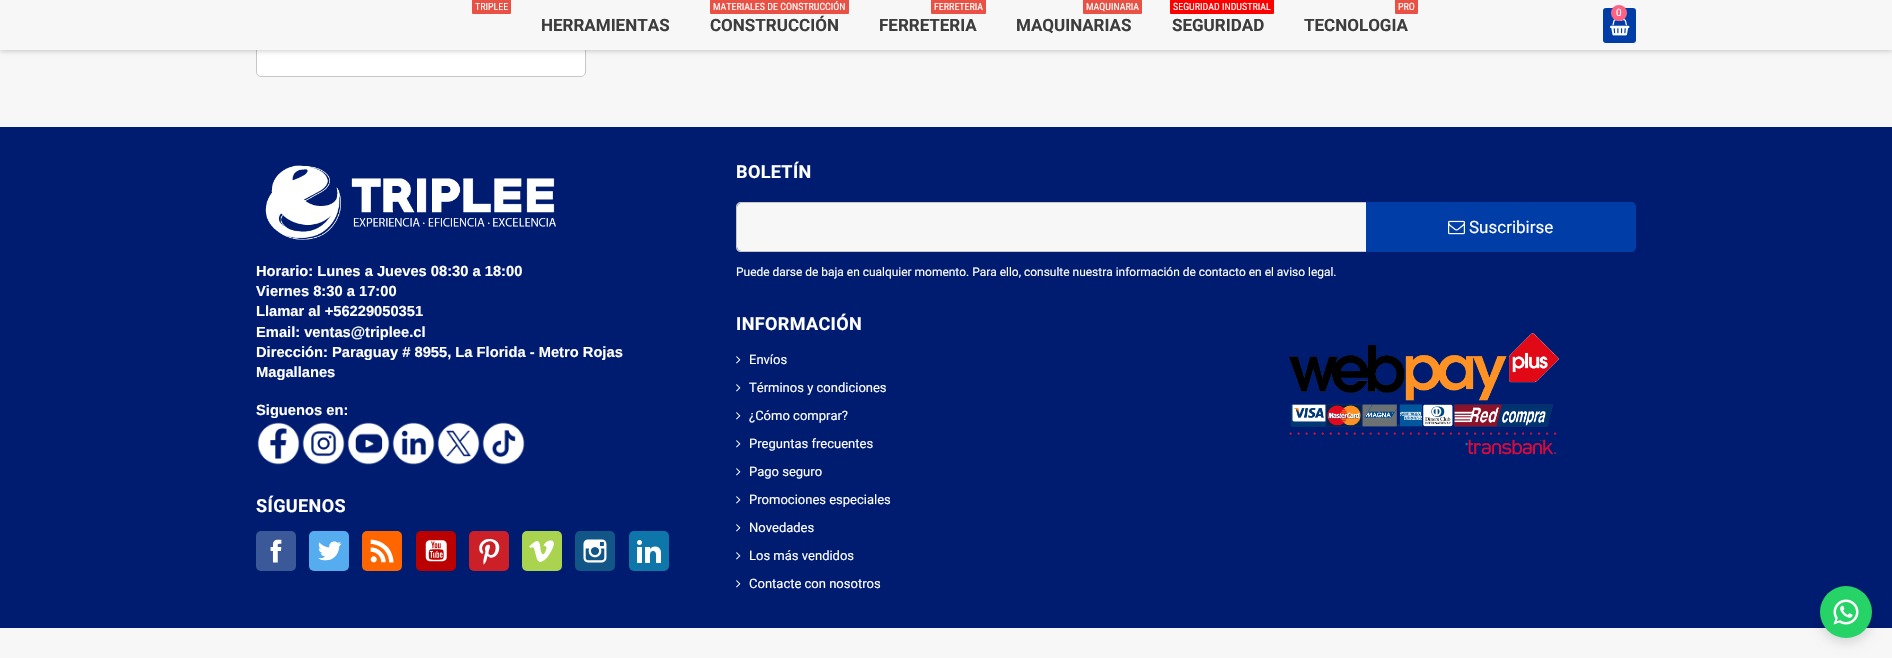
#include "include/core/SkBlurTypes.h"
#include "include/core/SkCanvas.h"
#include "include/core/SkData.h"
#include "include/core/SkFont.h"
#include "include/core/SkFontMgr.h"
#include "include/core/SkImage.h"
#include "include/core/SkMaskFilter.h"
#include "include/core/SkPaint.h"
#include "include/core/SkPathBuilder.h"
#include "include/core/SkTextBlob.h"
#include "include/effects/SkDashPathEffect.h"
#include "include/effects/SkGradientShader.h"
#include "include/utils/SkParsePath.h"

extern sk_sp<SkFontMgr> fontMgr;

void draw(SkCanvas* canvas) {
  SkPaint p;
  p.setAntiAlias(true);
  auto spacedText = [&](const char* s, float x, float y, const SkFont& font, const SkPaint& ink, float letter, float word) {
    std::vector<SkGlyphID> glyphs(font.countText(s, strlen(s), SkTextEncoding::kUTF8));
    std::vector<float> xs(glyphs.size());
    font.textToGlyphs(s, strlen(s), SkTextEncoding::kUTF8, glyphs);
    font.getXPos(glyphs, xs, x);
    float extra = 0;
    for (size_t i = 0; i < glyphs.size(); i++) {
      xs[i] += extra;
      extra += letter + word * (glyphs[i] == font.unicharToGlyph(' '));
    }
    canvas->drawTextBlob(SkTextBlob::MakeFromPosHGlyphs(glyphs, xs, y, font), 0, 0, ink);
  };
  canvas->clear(SkColorSetRGB(247, 247, 247));
  p.setColor(SK_ColorWHITE);
  canvas->drawRoundRect(SkRect::MakeLTRB(256.5f, -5.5f, 585.5f, 76.5f), 4.5f, 4.5f, p);
  p.setStyle(SkPaint::kStroke_Style);
  p.setStrokeWidth(1);
  p.setColor(SkColorSetRGB(199, 199, 199));
  canvas->drawRoundRect(SkRect::MakeLTRB(256.5f, -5.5f, 585.5f, 76.5f), 4.5f, 4.5f, p);
  p.setStyle(SkPaint::kFill_Style);
  p.setColor(SkColorSetARGB(51, 0, 0, 0));
  p.setMaskFilter(SkMaskFilter::MakeBlur(kNormal_SkBlurStyle, 2.5f));
  canvas->drawRect(SkRect::MakeLTRB(0, 1, 1892, 51), p);
  p.setMaskFilter(nullptr);
  p.setColor(SkColorSetRGB(247, 247, 247));
  canvas->drawRect(SkRect::MakeLTRB(0, 0, 1892, 50), p);
  p.setColor(SkColorSetRGB(233, 81, 68));
  canvas->drawRoundRect(SkRect::MakeLTRB(472, -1, 511, 14), 1, 1, p);
  canvas->drawRoundRect(SkRect::MakeLTRB(710, -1, 849, 14), 1, 1, p);
  canvas->drawRoundRect(SkRect::MakeLTRB(931, -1, 986, 14), 1, 1, p);
  canvas->drawRoundRect(SkRect::MakeLTRB(1083, -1, 1142, 14), 1, 1, p);
  p.setColor(SkColorSetRGB(255, 0, 0));
  canvas->drawRoundRect(SkRect::MakeLTRB(1170, -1, 1274, 14), 1, 1, p);
  p.setColor(SkColorSetRGB(233, 81, 68));
  canvas->drawRoundRect(SkRect::MakeLTRB(1395, -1, 1418, 14), 1, 1, p);
  p.setColor(SkColorSetRGB(0, 61, 166));
  canvas->drawRoundRect(SkRect::MakeLTRB(1603, 8, 1636, 43), 3, 3, p);
  canvas->drawImageRect(SkImages::DeferredFromEncodedData(SkData::MakeFromFileName("images/1.png")), SkRect::MakeLTRB(1610, 19, 1630, 36), SkSamplingOptions());
  p.setColor(SkColorSetRGB(253, 98, 130));
  canvas->drawCircle(1619, 13, 8, p);
  p.setColor(SkColorSetRGB(0, 28, 113));
  canvas->drawRect(SkRect::MakeLTRB(0, 127, 1892, 628), p);
  canvas->drawImageRect(SkImages::DeferredFromEncodedData(SkData::MakeFromFileName("images/2.png")), SkRect::MakeLTRB(265, 165, 556, 240), SkSamplingOptions());
  canvas->drawImageRect(SkImages::DeferredFromEncodedData(SkData::MakeFromFileName("images/3.png")), SkRect::MakeLTRB(257, 422, 300, 465), SkSamplingOptions());
  canvas->drawImageRect(SkImages::DeferredFromEncodedData(SkData::MakeFromFileName("images/4.png")), SkRect::MakeLTRB(302, 422, 345, 465), SkSamplingOptions());
  canvas->drawImageRect(SkImages::DeferredFromEncodedData(SkData::MakeFromFileName("images/5.png")), SkRect::MakeLTRB(347, 422, 390, 465), SkSamplingOptions());
  canvas->drawImageRect(SkImages::DeferredFromEncodedData(SkData::MakeFromFileName("images/6.png")), SkRect::MakeLTRB(392, 422, 435, 465), SkSamplingOptions());
  canvas->drawImageRect(SkImages::DeferredFromEncodedData(SkData::MakeFromFileName("images/7.png")), SkRect::MakeLTRB(437, 422, 480, 465), SkSamplingOptions());
  canvas->drawImageRect(SkImages::DeferredFromEncodedData(SkData::MakeFromFileName("images/8.png")), SkRect::MakeLTRB(482, 422, 525, 465), SkSamplingOptions());
  p.setColor(SkColorSetRGB(59, 89, 152));
  canvas->drawRoundRect(SkRect::MakeLTRB(256, 531, 296, 571), 5, 5, p);
  canvas->drawImageRect(SkImages::DeferredFromEncodedData(SkData::MakeFromFileName("images/9.png")), SkRect::MakeLTRB(270, 539, 282, 563), SkSamplingOptions());
  p.setColor(SkColorSetRGB(85, 172, 238));
  canvas->drawRoundRect(SkRect::MakeLTRB(309, 531, 349, 571), 5, 5, p);
  canvas->drawImageRect(SkImages::DeferredFromEncodedData(SkData::MakeFromFileName("images/10.png")), SkRect::MakeLTRB(318, 541, 342, 561), SkSamplingOptions());
  p.setColor(SkColorSetRGB(255, 102, 0));
  canvas->drawRoundRect(SkRect::MakeLTRB(362, 531, 402, 571), 5, 5, p);
  canvas->drawImageRect(SkImages::DeferredFromEncodedData(SkData::MakeFromFileName("images/11.png")), SkRect::MakeLTRB(370, 539, 394, 563), SkSamplingOptions());
  p.setColor(SkColorSetRGB(187, 0, 0));
  canvas->drawRoundRect(SkRect::MakeLTRB(416, 531, 456, 571), 5, 5, p);
  canvas->drawImageRect(SkImages::DeferredFromEncodedData(SkData::MakeFromFileName("images/12.png")), SkRect::MakeLTRB(425, 540, 447, 562), SkSamplingOptions());
  p.setColor(SkColorSetRGB(203, 32, 39));
  canvas->drawRoundRect(SkRect::MakeLTRB(469, 531, 509, 571), 5, 5, p);
  canvas->drawImageRect(SkImages::DeferredFromEncodedData(SkData::MakeFromFileName("images/13.png")), SkRect::MakeLTRB(479, 539, 500, 565), SkSamplingOptions());
  p.setColor(SkColorSetRGB(170, 212, 80));
  canvas->drawRoundRect(SkRect::MakeLTRB(522, 531, 562, 571), 5, 5, p);
  canvas->drawImageRect(SkImages::DeferredFromEncodedData(SkData::MakeFromFileName("images/14.png")), SkRect::MakeLTRB(529, 540, 554, 562), SkSamplingOptions());
  p.setColor(SkColorSetRGB(18, 86, 136));
  canvas->drawRoundRect(SkRect::MakeLTRB(575, 531, 615, 571), 5, 5, p);
  canvas->drawImageRect(SkImages::DeferredFromEncodedData(SkData::MakeFromFileName("images/15.png")), SkRect::MakeLTRB(583, 539, 607, 563), SkSamplingOptions());
  p.setColor(SkColorSetRGB(14, 118, 168));
  canvas->drawRoundRect(SkRect::MakeLTRB(629, 531, 669, 571), 5, 5, p);
  canvas->drawImageRect(SkImages::DeferredFromEncodedData(SkData::MakeFromFileName("images/16.png")), SkRect::MakeLTRB(637, 540, 661, 563), SkSamplingOptions());
  p.setColor(SkColorSetRGB(247, 247, 247));
  canvas->drawPath(SkPathBuilder().moveTo(741, 203).lineTo(1366, 203).lineTo(1366, 251).lineTo(741, 251).cubicTo(739, 251, 737, 249, 737, 247).lineTo(737, 207).cubicTo(737, 205, 739, 203, 741, 203).close().detach(), p);
  p.setColor(SkColorSetRGB(199, 199, 199));
  canvas->drawPath(SkPathBuilder(SkPathFillType::kEvenOdd).moveTo(741, 202).lineTo(1366, 202).lineTo(1366, 252).lineTo(741, 252).cubicTo(738, 252, 736, 250, 736, 247).lineTo(736, 207).cubicTo(736, 204, 738, 202, 741, 202).close().moveTo(741, 203).lineTo(1366, 203).lineTo(1366, 251).lineTo(741, 251).cubicTo(739, 251, 737, 249, 737, 247).lineTo(737, 207).cubicTo(737, 205, 739, 203, 741, 203).close().detach(), p);
  p.setColor(SkColorSetRGB(0, 61, 166));
  canvas->drawPath(SkPathBuilder().moveTo(1366, 202).lineTo(1631, 202).cubicTo(1634, 202, 1636, 204, 1636, 207).lineTo(1636, 247).cubicTo(1636, 250, 1634, 252, 1631, 252).lineTo(1366, 252).close().detach(), p);
  canvas->drawImageRect(SkImages::DeferredFromEncodedData(SkData::MakeFromFileName("images/17.png")), SkRect::MakeLTRB(1448, 220, 1465, 235), SkSamplingOptions());
  canvas->drawImageRect(SkImages::DeferredFromEncodedData(SkData::MakeFromFileName("images/18.png")), SkRect::MakeLTRB(736, 356, 741, 364), SkSamplingOptions());
  canvas->drawImageRect(SkImages::DeferredFromEncodedData(SkData::MakeFromFileName("images/18.png")), SkRect::MakeLTRB(736, 384, 741, 392), SkSamplingOptions());
  canvas->drawImageRect(SkImages::DeferredFromEncodedData(SkData::MakeFromFileName("images/18.png")), SkRect::MakeLTRB(736, 412, 741, 420), SkSamplingOptions());
  canvas->drawImageRect(SkImages::DeferredFromEncodedData(SkData::MakeFromFileName("images/18.png")), SkRect::MakeLTRB(736, 440, 741, 448), SkSamplingOptions());
  canvas->drawImageRect(SkImages::DeferredFromEncodedData(SkData::MakeFromFileName("images/18.png")), SkRect::MakeLTRB(736, 468, 741, 476), SkSamplingOptions());
  canvas->drawImageRect(SkImages::DeferredFromEncodedData(SkData::MakeFromFileName("images/18.png")), SkRect::MakeLTRB(736, 496, 741, 504), SkSamplingOptions());
  canvas->drawImageRect(SkImages::DeferredFromEncodedData(SkData::MakeFromFileName("images/18.png")), SkRect::MakeLTRB(736, 524, 741, 532), SkSamplingOptions());
  canvas->drawImageRect(SkImages::DeferredFromEncodedData(SkData::MakeFromFileName("images/18.png")), SkRect::MakeLTRB(736, 552, 741, 560), SkSamplingOptions());
  canvas->drawImageRect(SkImages::DeferredFromEncodedData(SkData::MakeFromFileName("images/18.png")), SkRect::MakeLTRB(736, 580, 741, 588), SkSamplingOptions());
  canvas->drawImageRect(SkImages::DeferredFromEncodedData(SkData::MakeFromFileName("images/19.png")), SkRect::MakeLTRB(1289, 333, 1559, 455), SkSamplingOptions());
  p.setColor(SkColorSetARGB(38, 0, 0, 0));
  p.setMaskFilter(SkMaskFilter::MakeBlur(kNormal_SkBlurStyle, 6));
  canvas->drawRoundRect(SkRect::MakeLTRB(1820, 590, 1872, 642), 26, 26, p);
  p.setMaskFilter(nullptr);
  p.setColor(SkColorSetRGB(37, 211, 102));
  canvas->drawCircle(1846, 612, 26, p);
  canvas->drawImageRect(SkImages::DeferredFromEncodedData(SkData::MakeFromFileName("images/20.png")), SkRect::MakeLTRB(1833, 599, 1859, 625), SkSamplingOptions());
  SkFont font1(fontMgr->matchFamilyStyle("Roboto Condensed", SkFontStyle::Normal()), 10);
  font1.setSubpixel(true);
  p.setColor(SK_ColorWHITE);
  canvas->drawString("TRIPLEE", 475, 10, font1, p);
  SkFont font2(fontMgr->matchFamilyStyle("Roboto", SkFontStyle::Bold()), 17);
  font2.setSubpixel(true);
  p.setColor(SkColorSetRGB(61, 61, 61));
  canvas->drawString("HERRAMIENTAS", 541, 31, font2, p);
  p.setColor(SK_ColorWHITE);
  canvas->drawString("MATERIALES DE CONSTRUCCIÓN", 713, 10, font1, p);
  p.setColor(SkColorSetRGB(61, 61, 61));
  canvas->drawString("CONSTRUCCIÓN", 710, 31, font2, p);
  p.setColor(SK_ColorWHITE);
  canvas->drawString("FERRETERIA", 934, 10, font1, p);
  p.setColor(SkColorSetRGB(61, 61, 61));
  canvas->drawString("FERRETERIA", 879, 31, font2, p);
  p.setColor(SK_ColorWHITE);
  canvas->drawString("MAQUINARIA", 1086, 10, font1, p);
  p.setColor(SkColorSetRGB(61, 61, 61));
  canvas->drawString("MAQUINARIAS", 1016, 31, font2, p);
  p.setColor(SK_ColorWHITE);
  canvas->drawString("SEGURIDAD INDUSTRIAL", 1173, 10, font1, p);
  p.setColor(SkColorSetRGB(61, 61, 61));
  canvas->drawString("SEGURIDAD", 1172, 31, font2, p);
  p.setColor(SK_ColorWHITE);
  canvas->drawString("PRO", 1398, 10, font1, p);
  p.setColor(SkColorSetRGB(61, 61, 61));
  canvas->drawString("TECNOLOGIA", 1304, 31, font2, p);
  SkFont font3(fontMgr->matchFamilyStyle("Roboto", SkFontStyle::Normal()), 10);
  font3.setSubpixel(true);
  p.setColor(SK_ColorWHITE);
  canvas->drawString("0", 1616, 16, font3, p);
  SkFont font4(fontMgr->matchFamilyStyle("Liberation Sans", SkFontStyle::Bold()), 14.7f);
  font4.setSubpixel(true);
  canvas->drawString("Horario: Lunes a Jueves 08:30 a 18:00", 256, 276, font4, p);
  canvas->drawString("Viernes 8:30 a 17:00", 256, 296, font4, p);
  canvas->drawString("Llamar al +56229050351", 256, 316, font4, p);
  canvas->drawString("Email: ventas@triplee.cl", 256, 337, font4, p);
  canvas->drawString("Dirección: Paraguay # 8955, La Florida - Metro Rojas", 256, 357, font4, p);
  canvas->drawString("Magallanes", 256, 377, font4, p);
  canvas->drawString("Siguenos en:", 256, 415, font4, p);
  SkFont font5(fontMgr->matchFamilyStyle("Roboto", SkFontStyle::Bold()), 18);
  font5.setSubpixel(true);
  spacedText("SÍGUENOS", 256, 512, font5, p, 0.4f, 0);
  spacedText("BOLETÍN", 736, 178, font5, p, 0.4f, 0);
  SkFont font6(fontMgr->matchFamilyStyle("Roboto", SkFontStyle::Normal()), 17);
  font6.setSubpixel(true);
  canvas->drawString("Suscribirse", 1469, 233, font6, p);
  SkFont font7(fontMgr->matchFamilyStyle("Roboto", SkFontStyle::Normal()), 11.95f);
  font7.setSubpixel(true);
  canvas->drawString("Puede darse de baja en cualquier momento. Para ello, consulte nuestra información de contacto en el aviso legal.", 736, 276, font7, p);
  spacedText("INFORMACIÓN", 736, 330, font5, p, 0.4f, 0);
  SkFont font8(fontMgr->matchFamilyStyle("Roboto", SkFontStyle::Normal()), 13);
  font8.setSubpixel(true);
  canvas->drawString("Envíos", 749, 364, font8, p);
  canvas->drawString("Términos y condiciones", 749, 392, font8, p);
  canvas->drawString("¿Cómo comprar?", 749, 420, font8, p);
  canvas->drawString("Preguntas frecuentes", 749, 448, font8, p);
  canvas->drawString("Pago seguro", 749, 476, font8, p);
  canvas->drawString("Promociones especiales", 749, 504, font8, p);
  canvas->drawString("Novedades", 749, 532, font8, p);
  canvas->drawString("Los más vendidos", 749, 560, font8, p);
  canvas->drawString("Contacte con nosotros", 749, 588, font8, p);
}
